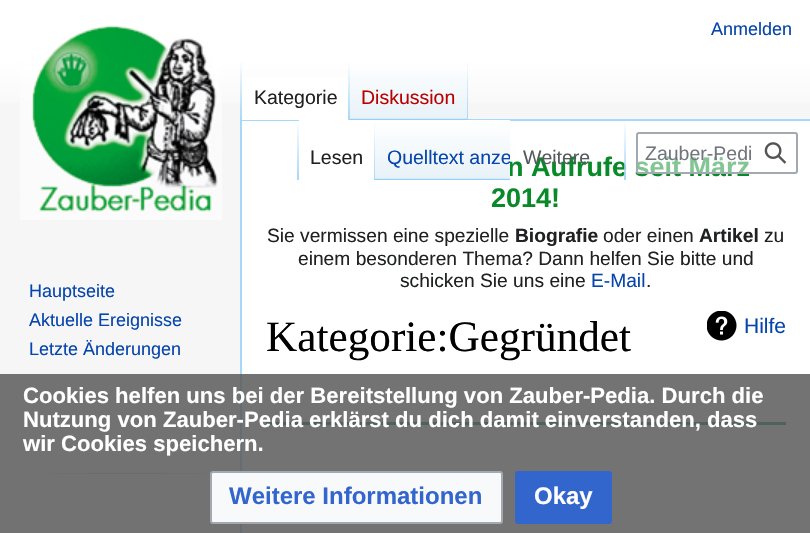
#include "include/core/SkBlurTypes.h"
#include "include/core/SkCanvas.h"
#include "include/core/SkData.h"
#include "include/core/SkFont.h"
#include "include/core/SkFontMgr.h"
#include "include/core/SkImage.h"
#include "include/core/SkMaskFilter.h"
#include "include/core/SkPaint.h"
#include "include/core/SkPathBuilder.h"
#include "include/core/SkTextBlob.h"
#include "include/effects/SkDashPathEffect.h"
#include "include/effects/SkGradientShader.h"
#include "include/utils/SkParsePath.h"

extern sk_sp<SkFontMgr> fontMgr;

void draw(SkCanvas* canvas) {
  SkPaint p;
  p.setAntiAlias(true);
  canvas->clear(SkColorSetRGB(246, 246, 246));
  {
    const SkColor colors[] = {SK_ColorWHITE, SkColorSetRGB(246, 246, 246)};
    const float stops[] = {0.5f, 1};
    const SkPoint ends[] = {{405, 0}, {405, 120}};
    p.setShader(SkGradientShader::MakeLinear(ends, colors, stops, 2, SkTileMode::kClamp));
    p.setAlpha(255);
  }
  canvas->drawRect(SkRect::MakeLTRB(0, 0, 810, 103), p);
  p.setShader(nullptr);
  p.setColor(SkColorSetRGB(167, 215, 249));
  canvas->drawRect(SkRect::MakeLTRB(240, 119, 810, 121), p);
  canvas->drawRect(SkRect::MakeLTRB(240, 119, 242, 533), p);
  {
    const SkColor colors[] = {SkColorSetARGB(0, 167, 215, 249), SkColorSetRGB(167, 215, 249)};
    const float stops[] = {0, 1};
    const SkPoint ends[] = {{241, 60}, {241, 120}};
    p.setShader(SkGradientShader::MakeLinear(ends, colors, stops, 2, SkTileMode::kClamp));
    p.setAlpha(255);
  }
  canvas->drawRect(SkRect::MakeLTRB(240, 60, 242, 120), p);
  p.setShader(nullptr);
  p.setColor(SK_ColorWHITE);
  canvas->drawRect(SkRect::MakeLTRB(242, 77, 348, 120), p);
  {
    const SkColor colors[] = {SK_ColorWHITE, SkColorSetRGB(167, 215, 249)};
    const float stops[] = {0, 1};
    const SkPoint ends[] = {{349, 60}, {349, 120}};
    p.setShader(SkGradientShader::MakeLinear(ends, colors, stops, 2, SkTileMode::kClamp));
    p.setAlpha(255);
  }
  canvas->drawRect(SkRect::MakeLTRB(348, 60, 350, 120), p);
  {
    const SkColor colors[] = {SkColorSetRGB(119, 193, 246), SkColorSetRGB(232, 242, 248), SK_ColorWHITE};
    const float stops[] = {0, 0.03f, 1};
    const SkPoint ends[] = {{409, 120}, {409, 60}};
    p.setShader(SkGradientShader::MakeLinear(ends, colors, stops, 3, SkTileMode::kClamp));
    p.setAlpha(255);
  }
  canvas->drawRect(SkRect::MakeLTRB(350, 69, 468, 120), p);
  {
    const SkColor colors[] = {SkColorSetARGB(0, 167, 215, 249), SkColorSetRGB(167, 215, 249)};
    const float stops[] = {0, 1};
    const SkPoint ends[] = {{467, 60}, {467, 120}};
    p.setShader(SkGradientShader::MakeLinear(ends, colors, stops, 2, SkTileMode::kClamp));
    p.setAlpha(255);
  }
  canvas->drawRect(SkRect::MakeLTRB(467, 60, 468, 120), p);
  p.setShader(nullptr);
  p.setColor(SK_ColorWHITE);
  canvas->drawRect(SkRect::MakeLTRB(242, 121, 810, 533), p);
  {
    const SkColor colors[] = {SkColorSetARGB(0, 167, 215, 249), SkColorSetRGB(167, 215, 249)};
    const float stops[] = {0, 1};
    const SkPoint ends[] = {{298, 120}, {298, 180}};
    p.setShader(SkGradientShader::MakeLinear(ends, colors, stops, 2, SkTileMode::kClamp));
    p.setAlpha(255);
  }
  canvas->drawRect(SkRect::MakeLTRB(297, 120, 299, 180), p);
  p.setShader(nullptr);
  p.setColor(SK_ColorWHITE);
  canvas->drawRect(SkRect::MakeLTRB(299, 120, 374, 121), p);
  {
    const SkColor colors[] = {SK_ColorWHITE, SkColorSetRGB(167, 215, 249)};
    const float stops[] = {0, 1};
    const SkPoint ends[] = {{374, 120}, {374, 180}};
    p.setShader(SkGradientShader::MakeLinear(ends, colors, stops, 2, SkTileMode::kClamp));
    p.setAlpha(255);
  }
  canvas->drawRect(SkRect::MakeLTRB(374, 120, 375, 180), p);
  canvas->drawImageRect(SkImages::DeferredFromEncodedData(SkData::MakeFromFileName("images/2.png")), SkRect::MakeLTRB(20, 25, 222, 220), SkSamplingOptions());
  {
    const SkColor colors[] = {SkColorSetRGB(246, 246, 246), SkColorSetRGB(200, 204, 209), SkColorSetRGB(200, 204, 209), SkColorSetRGB(246, 246, 246)};
    const float stops[] = {0, 0.33f, 0.66f, 1};
    const SkPoint ends[] = {{29, 473}, {225, 473}};
    p.setShader(SkGradientShader::MakeLinear(ends, colors, stops, 4, SkTileMode::kClamp));
    p.setAlpha(255);
  }
  canvas->drawRect(SkRect::MakeLTRB(29, 473, 211, 474), p);
  p.setShader(nullptr);
  p.setColor(SkColorSetRGB(8, 138, 75));
  canvas->drawRect(SkRect::MakeLTRB(266, 422, 786, 425), p);
  canvas->drawImageRect(SkImages::DeferredFromEncodedData(SkData::MakeFromFileName("images/3.png")), SkRect::MakeLTRB(707, 311, 737, 341), SkSamplingOptions());
  p.setColor(SkColorSetARGB(217, 90, 90, 90));
  canvas->drawRect(SkRect::MakeLTRB(0, 374, 810, 533), p);
  p.setColor(SkColorSetRGB(248, 249, 250));
  canvas->drawRoundRect(SkRect::MakeLTRB(211, 472, 502, 523), 2, 2, p);
  p.setStyle(SkPaint::kStroke_Style);
  p.setStrokeWidth(2);
  p.setColor(SkColorSetRGB(162, 169, 177));
  canvas->drawRoundRect(SkRect::MakeLTRB(211, 472, 502, 523), 2, 2, p);
  p.setStyle(SkPaint::kFill_Style);
  p.setColor(SkColorSetRGB(51, 102, 204));
  canvas->drawRoundRect(SkRect::MakeLTRB(516, 472, 611, 523), 2, 2, p);
  p.setStyle(SkPaint::kStroke_Style);
  canvas->drawRoundRect(SkRect::MakeLTRB(516, 472, 611, 523), 2, 2, p);
  SkFont font1(fontMgr->matchFamilyStyle("Liberation Sans", SkFontStyle::Normal()), 18);
  font1.setSubpixel(true);
  p.setStyle(SkPaint::kFill_Style);
  p.setColor(SkColorSetRGB(6, 69, 173));
  canvas->drawString("Anmelden", 711, 35, font1, p);
  SkFont font2(fontMgr->matchFamilyStyle("Liberation Sans", SkFontStyle::Normal()), 19.5f);
  font2.setSubpixel(true);
  p.setColor(SkColorSetRGB(32, 33, 34));
  canvas->drawString("Kategorie", 254, 104, font2, p);
  p.setColor(SkColorSetRGB(186, 0, 0));
  canvas->drawString("Diskussion", 361, 104, font2, p);
  p.setColor(SkColorSetRGB(32, 33, 34));
  canvas->drawString("Lesen", 310, 164, font2, p);
  p.setColor(SkColorSetRGB(6, 69, 173));
  canvas->drawString("Hauptseite", 29, 297, font1, p);
  canvas->drawString("Aktuelle Ereignisse", 29, 326, font1, p);
  canvas->drawString("Letzte Änderungen", 29, 355, font1, p);
  SkFont font3(fontMgr->matchFamilyStyle("Liberation Sans", SkFontStyle::Bold()), 27);
  font3.setSubpixel(true);
  p.setColor(SkColorSetRGB(8, 138, 41));
  canvas->drawString("n Aufrufe seit März", 507, 176, font3, p);
  p.setColor(SkColorSetARGB(128, 255, 255, 255));
  canvas->drawRoundRect(SkRect::MakeLTRB(637, 133, 797, 173), 2, 2, p);
  p.setStyle(SkPaint::kStroke_Style);
  p.setColor(SkColorSetRGB(162, 169, 177));
  canvas->drawRoundRect(SkRect::MakeLTRB(637, 133, 797, 173), 2, 2, p);
  canvas->drawImageRect(SkImages::DeferredFromEncodedData(SkData::MakeFromFileName("images/1.png")), SkRect::MakeLTRB(764, 142, 787, 164), SkSamplingOptions());
  p.setStyle(SkPaint::kFill_Style);
  p.setColor(SkColorSetRGB(114, 119, 125));
  canvas->drawString("Zauber-Pedi", 645, 160, font2, p);
  p.setColor(SkColorSetRGB(84, 89, 93));
  canvas->drawString("Weitere", 523, 164, font2, p);
  {
    const SkColor colors[] = {SkColorSetARGB(0, 167, 215, 249), SkColorSetRGB(167, 215, 249)};
    const float stops[] = {0, 1};
    const SkPoint ends[] = {{625, 120}, {625, 180}};
    p.setShader(SkGradientShader::MakeLinear(ends, colors, stops, 2, SkTileMode::kClamp));
    p.setAlpha(255);
  }
  canvas->drawRect(SkRect::MakeLTRB(624, 120, 626, 180), p);
  {
    const SkColor colors[] = {SkColorSetRGB(119, 193, 246), SkColorSetRGB(232, 242, 248), SK_ColorWHITE};
    const float stops[] = {0, 0.03f, 1};
    const SkPoint ends[] = {{443, 180}, {443, 120}};
    p.setShader(SkGradientShader::MakeLinear(ends, colors, stops, 3, SkTileMode::kClamp));
    p.setAlpha(255);
  }
  canvas->drawRect(SkRect::MakeLTRB(375, 120, 510, 180), p);
  canvas->save();
  canvas->clipRect(SkRect::MakeLTRB(375, 120, 510, 180));
  p.setShader(nullptr);
  p.setColor(SkColorSetRGB(6, 69, 173));
  canvas->drawString("Quelltext anze", 387, 164, font2, p);
  canvas->restore();
  p.setColor(SkColorSetRGB(8, 138, 41));
  canvas->drawString("2014!", 491, 207, font3, p);
  SkFont font4(fontMgr->matchFamilyStyle("Liberation Sans", SkFontStyle::Normal()), 19.2f);
  font4.setSubpixel(true);
  p.setColor(SkColorSetRGB(32, 33, 34));
  canvas->drawString("Sie vermissen eine spezielle", 267, 242, font4, p);
  SkFont font5(fontMgr->matchFamilyStyle("Liberation Sans", SkFontStyle::Bold()), 19.2f);
  font5.setSubpixel(true);
  canvas->drawString("Biografie", 515, 242, font5, p);
  canvas->drawString("oder einen", 603, 242, font4, p);
  canvas->drawString("Artikel", 699, 242, font5, p);
  canvas->drawString("zu", 764, 242, font4, p);
  canvas->drawString("einem besonderen Thema? Dann helfen Sie bitte und", 298, 265, font4, p);
  canvas->drawString("schicken Sie uns eine", 400, 287, font4, p);
  p.setColor(SkColorSetRGB(6, 69, 173));
  canvas->drawString("E-Mail", 591, 287, font4, p);
  p.setColor(SkColorSetRGB(32, 33, 34));
  canvas->drawString(".", 646, 287, font4, p);
  SkFont font6(fontMgr->matchFamilyStyle("Liberation Serif", SkFontStyle::Normal()), 43.25f);
  font6.setSubpixel(true);
  p.setColor(SK_ColorBLACK);
  canvas->drawString("Kategorie:Gegründet", 266, 351, font6, p);
  SkFont font7(fontMgr->matchFamilyStyle("Liberation Sans", SkFontStyle::Normal()), 21);
  font7.setSubpixel(true);
  p.setColor(SkColorSetRGB(6, 69, 173));
  canvas->drawString("Hilfe", 744, 333, font7, p);
  SkFont font8(fontMgr->matchFamilyStyle("Liberation Sans", SkFontStyle::Bold()), 22.1f);
  font8.setSubpixel(true);
  p.setColor(SK_ColorWHITE);
  canvas->drawString("Cookies helfen uns bei der Bereitstellung von Zauber-Pedia. Durch die", 23, 403, font8, p);
  canvas->drawString("Nutzung von Zauber-Pedia erklärst du dich damit einverstanden, dass", 23, 427, font8, p);
  canvas->drawString("wir Cookies speichern.", 23, 451, font8, p);
  SkFont font9(fontMgr->matchFamilyStyle("Liberation Sans", SkFontStyle::Bold()), 24);
  font9.setSubpixel(true);
  p.setColor(SkColorSetRGB(51, 102, 204));
  canvas->drawString("Weitere Informationen", 229, 504, font9, p);
  p.setColor(SK_ColorWHITE);
  canvas->drawString("Okay", 534, 504, font9, p);
}
